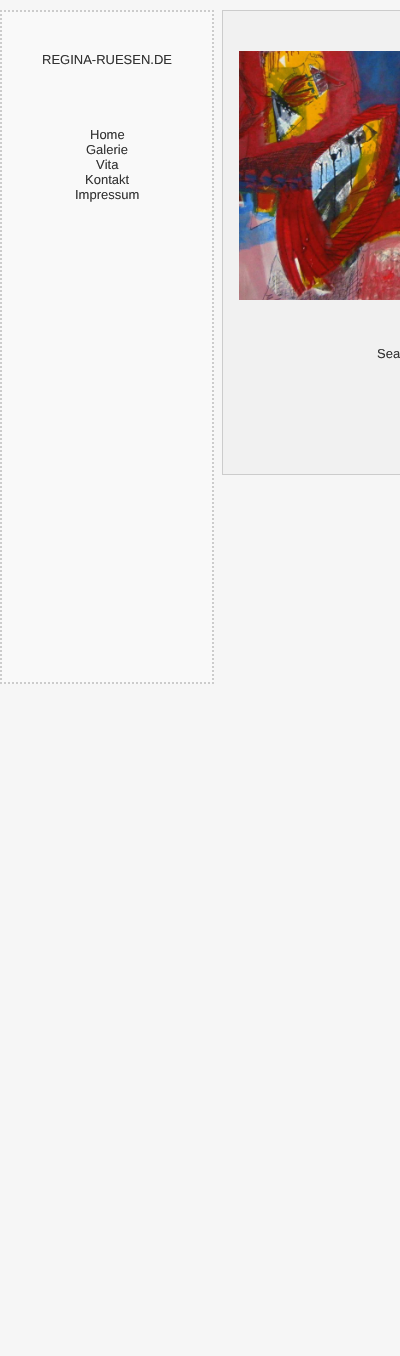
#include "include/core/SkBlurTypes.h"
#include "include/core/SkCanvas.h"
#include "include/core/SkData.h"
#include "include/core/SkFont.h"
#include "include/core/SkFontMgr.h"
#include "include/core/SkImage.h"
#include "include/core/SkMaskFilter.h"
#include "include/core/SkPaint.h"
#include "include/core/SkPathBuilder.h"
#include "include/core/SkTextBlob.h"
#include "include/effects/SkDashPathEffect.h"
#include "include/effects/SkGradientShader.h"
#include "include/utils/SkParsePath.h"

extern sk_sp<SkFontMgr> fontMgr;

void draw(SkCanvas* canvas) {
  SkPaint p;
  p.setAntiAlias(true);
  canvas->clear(SkColorSetRGB(246, 246, 246));
  p.setColor(SkColorSetRGB(249, 249, 249));
  canvas->drawRect(SkRect::MakeLTRB(0, 10, 214, 684), p);
  p.setStyle(SkPaint::kStroke_Style);
  p.setStrokeWidth(2);
  p.setColor(SkColorSetRGB(204, 204, 204));
  p.setPathEffect(SkDashPathEffect::Make({{2, 2}}, 0));
  canvas->drawPath(SkPathBuilder().moveTo(0, 11).lineTo(214, 11).detach(), p);
  p.setPathEffect(nullptr);
  p.setPathEffect(SkDashPathEffect::Make({{2, 2}}, 0));
  canvas->drawPath(SkPathBuilder().moveTo(213, 10).lineTo(213, 684).detach(), p);
  p.setPathEffect(nullptr);
  p.setPathEffect(SkDashPathEffect::Make({{2, 2}}, 0));
  canvas->drawPath(SkPathBuilder().moveTo(0, 683).lineTo(214, 683).detach(), p);
  p.setPathEffect(nullptr);
  p.setPathEffect(SkDashPathEffect::Make({{2, 2}}, 0));
  canvas->drawPath(SkPathBuilder().moveTo(1, 10).lineTo(1, 684).detach(), p);
  p.setPathEffect(nullptr);
  p.setStyle(SkPaint::kFill_Style);
  p.setColor(SkColorSetRGB(241, 241, 241));
  canvas->drawRect(SkRect::MakeLTRB(222.5f, 10.5f, 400.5f, 474.5f), p);
  p.setStyle(SkPaint::kStroke_Style);
  p.setStrokeWidth(1);
  p.setColor(SkColorSetRGB(204, 204, 204));
  canvas->drawRect(SkRect::MakeLTRB(222.5f, 10.5f, 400.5f, 474.5f), p);
  canvas->drawImageRect(SkImages::DeferredFromEncodedData(SkData::MakeFromFileName("images/1.png")), SkRect::MakeLTRB(239, 51, 400, 300), SkSamplingOptions());
  SkFont font1(fontMgr->matchFamilyStyle("Liberation Sans", SkFontStyle::Normal()), 13);
  font1.setSubpixel(true);
  p.setStyle(SkPaint::kFill_Style);
  p.setColor(SkColorSetRGB(51, 51, 51));
  canvas->drawString("REGINA-RUESEN.DE", 42, 64, font1, p);
  canvas->drawString("Home", 90, 139, font1, p);
  canvas->drawString("Galerie", 86, 154, font1, p);
  canvas->drawString("Vita", 96, 169, font1, p);
  canvas->drawString("Kontakt", 85, 184, font1, p);
  canvas->drawString("Impressum", 75, 199, font1, p);
  canvas->drawString("Sea", 377, 358, font1, p);
}
